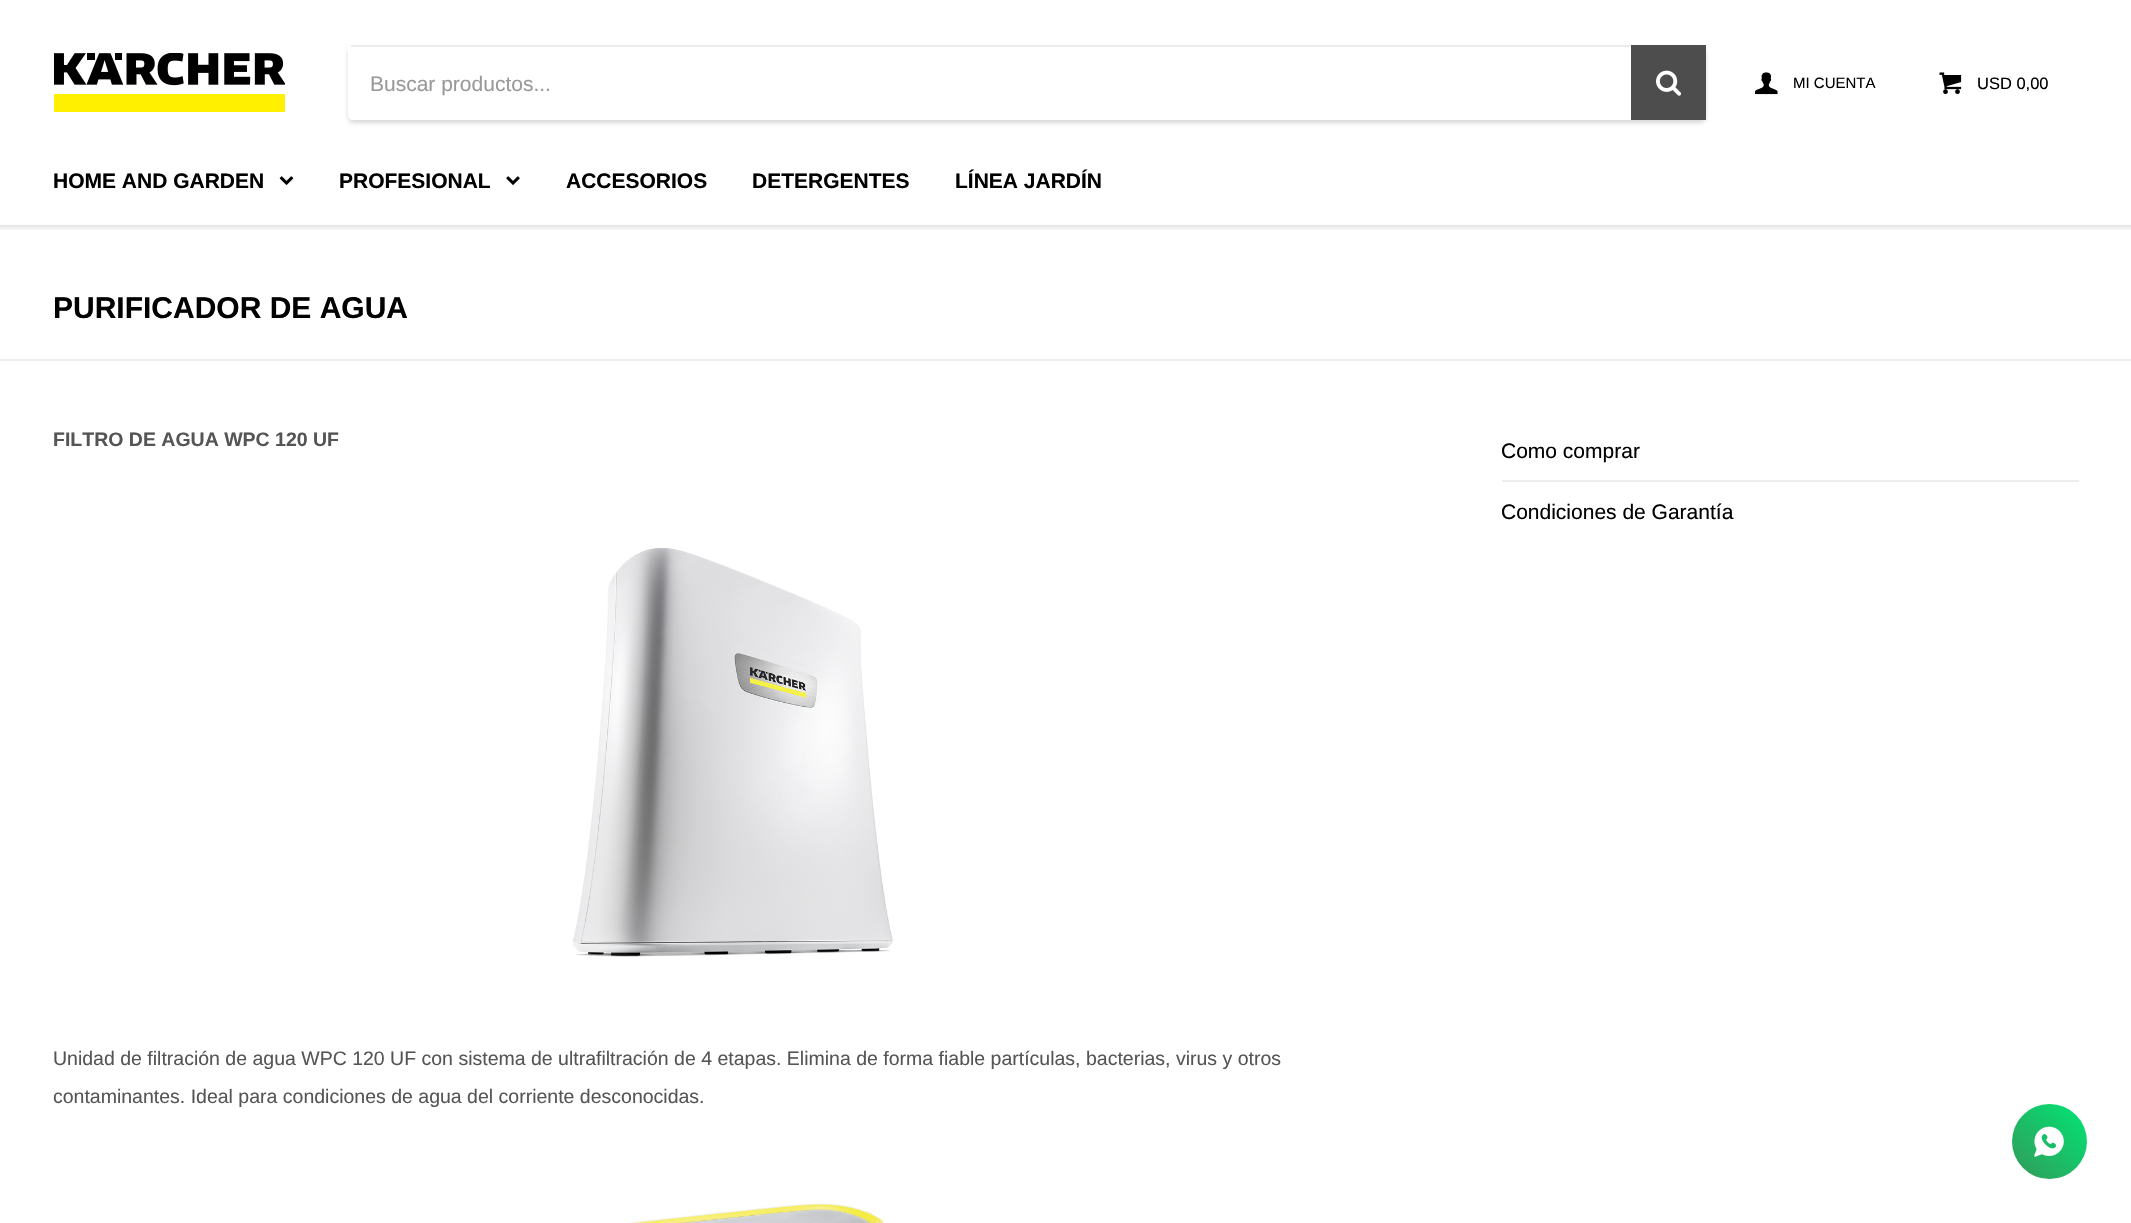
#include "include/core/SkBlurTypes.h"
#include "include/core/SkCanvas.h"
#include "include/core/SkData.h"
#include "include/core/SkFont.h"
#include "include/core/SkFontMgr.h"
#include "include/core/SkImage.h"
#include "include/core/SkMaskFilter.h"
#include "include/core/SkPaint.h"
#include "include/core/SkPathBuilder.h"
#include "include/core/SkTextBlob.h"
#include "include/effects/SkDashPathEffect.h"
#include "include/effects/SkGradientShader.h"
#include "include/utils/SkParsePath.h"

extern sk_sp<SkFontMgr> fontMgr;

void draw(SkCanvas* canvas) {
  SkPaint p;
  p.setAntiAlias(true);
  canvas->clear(SK_ColorWHITE);
  canvas->save();
  canvas->clipRect(SkRect::MakeLTRB(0, 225, 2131, 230));
  p.setColor(SkColorSetARGB(38, 0, 0, 0));
  p.setMaskFilter(SkMaskFilter::MakeBlur(kNormal_SkBlurStyle, 3));
  canvas->drawRect(SkRect::MakeLTRB(-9, 2, 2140, 227), p);
  p.setMaskFilter(nullptr);
  canvas->restore();
  canvas->drawImageRect(SkImages::DeferredFromEncodedData(SkData::MakeFromFileName("images/1.png")), SkRect::MakeLTRB(54, 53, 285, 112), SkSamplingOptions());
  p.setMaskFilter(SkMaskFilter::MakeBlur(kNormal_SkBlurStyle, 2));
  canvas->drawRoundRect(SkRect::MakeLTRB(348, 48, 1706, 123), 6, 6, p);
  p.setMaskFilter(nullptr);
  p.setColor(SK_ColorWHITE);
  canvas->drawPath(SkPathBuilder().moveTo(353, 45).lineTo(1700, 45).cubicTo(1703.5f, 45, 1706, 47.5f, 1706, 51).lineTo(1706, 114).cubicTo(1706, 117.5f, 1703.5f, 120, 1700, 120).lineTo(353, 120).cubicTo(350, 120, 348, 118, 348, 115).lineTo(348, 50).cubicTo(348, 47, 350, 45, 353, 45).close().detach(), p);
  p.setColor(SkColorSetRGB(237, 237, 237));
  canvas->drawRect(SkRect::MakeLTRB(351, 45, 1631, 47), p);
  p.setColor(SkColorSetRGB(77, 77, 77));
  canvas->drawRect(SkRect::MakeLTRB(1631, 45, 1706, 120), p);
  canvas->drawImageRect(SkImages::DeferredFromEncodedData(SkData::MakeFromFileName("images/2.png")), SkRect::MakeLTRB(1656, 70, 1682, 96), SkSamplingOptions());
  canvas->drawImageRect(SkImages::DeferredFromEncodedData(SkData::MakeFromFileName("images/3.png")), SkRect::MakeLTRB(1755, 72, 1778, 95), SkSamplingOptions());
  canvas->drawImageRect(SkImages::DeferredFromEncodedData(SkData::MakeFromFileName("images/4.png")), SkRect::MakeLTRB(1939, 72, 1962, 94), SkSamplingOptions());
  canvas->drawImageRect(SkImages::DeferredFromEncodedData(SkData::MakeFromFileName("images/5.png")), SkRect::MakeLTRB(279, 176, 294, 185), SkSamplingOptions());
  canvas->drawImageRect(SkImages::DeferredFromEncodedData(SkData::MakeFromFileName("images/6.png")), SkRect::MakeLTRB(506, 176, 520, 185), SkSamplingOptions());
  p.setColor(SkColorSetRGB(237, 237, 237));
  canvas->drawRect(SkRect::MakeLTRB(0, 359, 2131, 361), p);
  canvas->drawImageRect(SkImages::DeferredFromEncodedData(SkData::MakeFromFileName("images/7.png")), SkRect::MakeLTRB(572, 548, 893, 957), SkSamplingOptions());
  canvas->drawImageRect(SkImages::DeferredFromEncodedData(SkData::MakeFromFileName("images/8.png")), SkRect::MakeLTRB(628, 1203, 884, 1223), SkSamplingOptions());
  canvas->drawRect(SkRect::MakeLTRB(1502, 480, 2079, 482), p);
  {
    const SkColor colors[] = {SkColorSetRGB(51, 153, 90), SkColorSetRGB(1, 230, 117)};
    const float stops[] = {0, 1};
    const SkPoint ends[] = {{2012, 1179}, {2087, 1104}};
    p.setShader(SkGradientShader::MakeLinear(ends, colors, stops, 2, SkTileMode::kClamp));
    p.setAlpha(255);
  }
  canvas->drawCircle(2049.5f, 1141.5f, 37.5f, p);
  canvas->drawImageRect(SkImages::DeferredFromEncodedData(SkData::MakeFromFileName("images/9.png")), SkRect::MakeLTRB(2034, 1126, 2064, 1157), SkSamplingOptions());
  SkFont font1(fontMgr->matchFamilyStyle("Liberation Sans", SkFontStyle::Normal()), 21);
  font1.setSubpixel(true);
  p.setShader(nullptr);
  p.setColor(SkColorSetRGB(153, 153, 153));
  canvas->drawString("Buscar productos...", 370, 91, font1, p);
  SkFont font2(fontMgr->matchFamilyStyle("Liberation Sans", SkFontStyle::Normal()), 15);
  font2.setSubpixel(true);
  p.setColor(SK_ColorBLACK);
  canvas->drawString("MI CUENTA", 1793, 88, font2, p);
  SkFont font3(fontMgr->matchFamilyStyle("Liberation Sans", SkFontStyle::Normal()), 16.5f);
  font3.setSubpixel(true);
  canvas->drawString("USD 0,00", 1977, 89, font3, p);
  SkFont font4(fontMgr->matchFamilyStyle("Liberation Sans", SkFontStyle::Bold()), 21);
  font4.setSubpixel(true);
  canvas->drawString("HOME AND GARDEN", 53, 188, font4, p);
  canvas->drawString("PROFESIONAL", 339, 188, font4, p);
  canvas->drawString("ACCESORIOS", 566, 188, font4, p);
  canvas->drawString("DETERGENTES", 752, 188, font4, p);
  canvas->drawString("LÍNEA JARDÍN", 955, 188, font4, p);
  SkFont font5(fontMgr->matchFamilyStyle("Liberation Sans", SkFontStyle::Bold()), 30);
  font5.setSubpixel(true);
  canvas->drawString("PURIFICADOR DE AGUA", 53, 318, font5, p);
  SkFont font6(fontMgr->matchFamilyStyle("Liberation Sans", SkFontStyle::Bold()), 19.5f);
  font6.setSubpixel(true);
  p.setColor(SkColorSetRGB(85, 85, 85));
  canvas->drawString("FILTRO DE AGUA WPC 120 UF", 53, 446, font6, p);
  SkFont font7(fontMgr->matchFamilyStyle("Liberation Sans", SkFontStyle::Normal()), 19.5f);
  font7.setSubpixel(true);
  canvas->drawString("Unidad de filtración de agua WPC 120 UF con sistema de ultrafiltración de 4 etapas. Elimina de forma fiable partículas, bacterias, virus y otros", 53, 1065, font7, p);
  canvas->drawString("contaminantes. Ideal para condiciones de agua del corriente desconocidas.", 53, 1103, font7, p);
  p.setColor(SK_ColorBLACK);
  canvas->drawString("Como comprar", 1501, 458, font1, p);
  canvas->drawString("Condiciones de Garantía", 1501, 519, font1, p);
}
